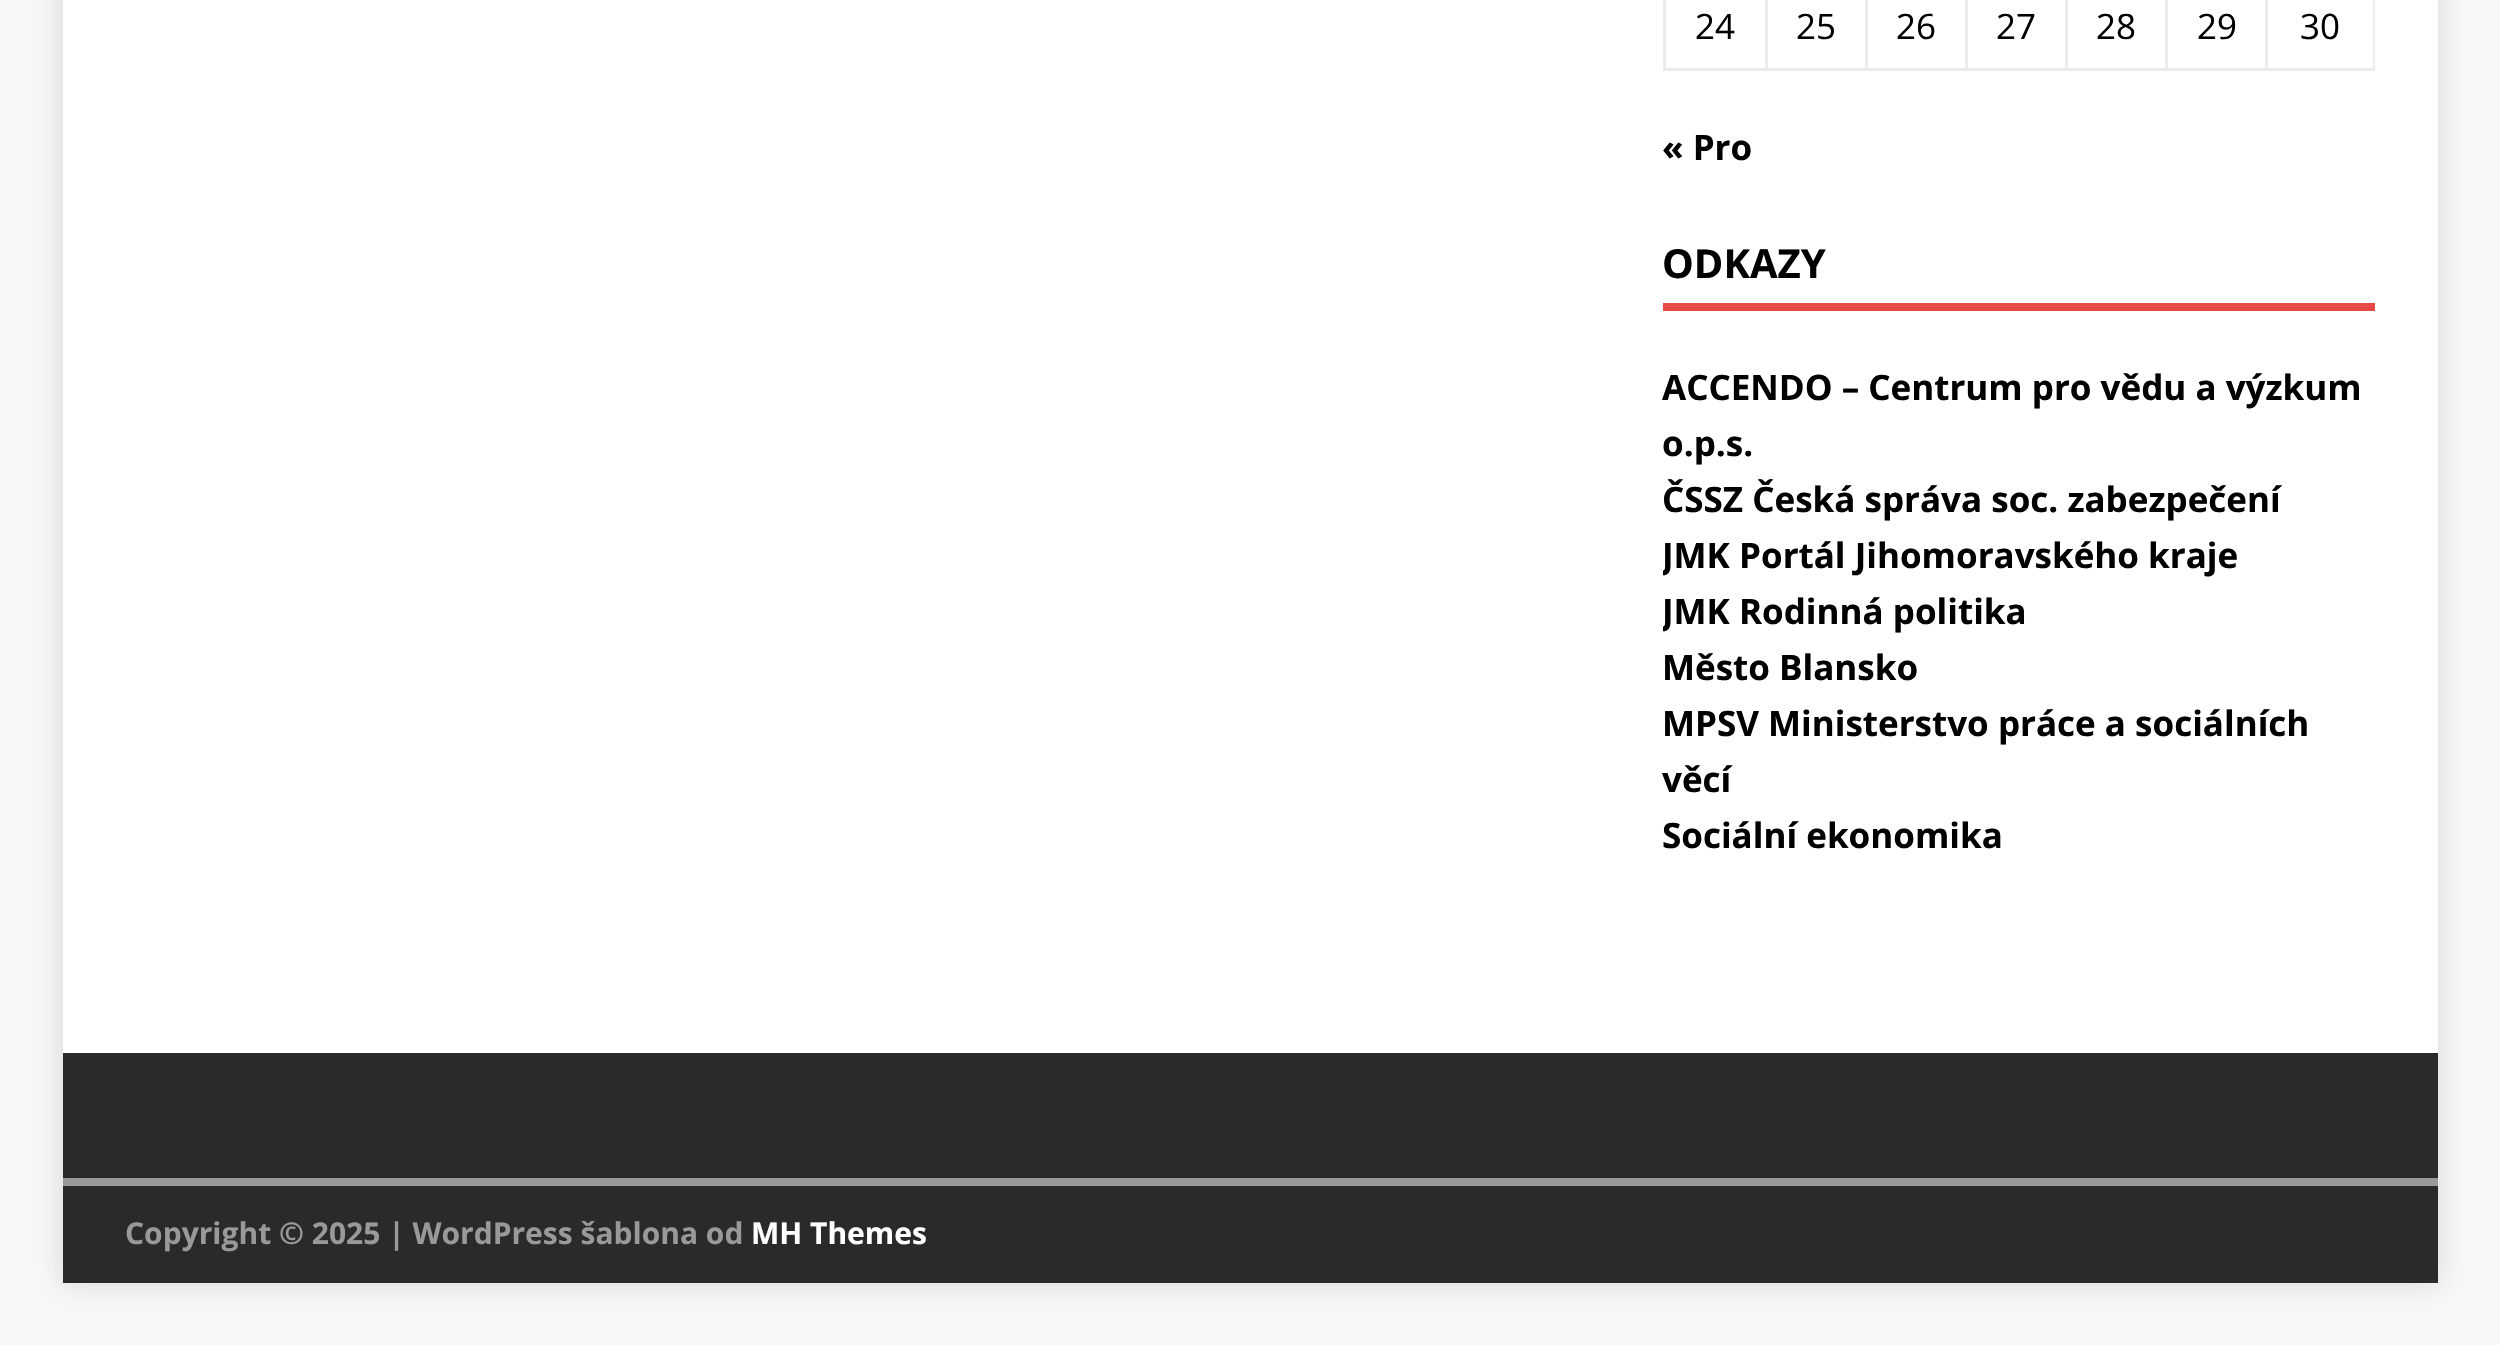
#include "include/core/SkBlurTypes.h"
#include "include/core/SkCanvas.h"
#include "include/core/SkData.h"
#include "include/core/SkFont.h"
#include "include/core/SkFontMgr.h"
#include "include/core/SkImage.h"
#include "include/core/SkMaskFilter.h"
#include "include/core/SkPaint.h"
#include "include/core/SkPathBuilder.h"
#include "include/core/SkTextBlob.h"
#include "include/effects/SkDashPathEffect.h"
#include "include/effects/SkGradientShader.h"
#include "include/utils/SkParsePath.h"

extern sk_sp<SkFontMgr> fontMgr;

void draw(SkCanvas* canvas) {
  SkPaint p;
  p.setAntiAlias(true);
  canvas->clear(SkColorSetRGB(247, 247, 247));
  p.setColor(SkColorSetARGB(43, 50, 50, 50));
  p.setMaskFilter(SkMaskFilter::MakeBlur(kNormal_SkBlurStyle, 12.5f));
  canvas->drawRect(SkRect::MakeLTRB(63, -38, 2438, 1283), p);
  p.setMaskFilter(nullptr);
  p.setColor(SK_ColorWHITE);
  canvas->drawRect(SkRect::MakeLTRB(63, 0, 2438, 1053), p);
  p.setColor(SkColorSetRGB(235, 235, 235));
  canvas->drawRect(SkRect::MakeLTRB(1663, 0, 1666, 70), p);
  canvas->drawRect(SkRect::MakeLTRB(2373, 0, 2375, 70), p);
  canvas->drawRect(SkRect::MakeLTRB(2265, 68, 2375, 71), p);
  canvas->drawRect(SkRect::MakeLTRB(2265, 0, 2268, 70), p);
  canvas->drawRect(SkRect::MakeLTRB(2165, 68, 2268, 71), p);
  canvas->drawRect(SkRect::MakeLTRB(2165, 0, 2168, 70), p);
  canvas->drawRect(SkRect::MakeLTRB(2065, 68, 2168, 71), p);
  canvas->drawRect(SkRect::MakeLTRB(2065, 0, 2068, 70), p);
  canvas->drawRect(SkRect::MakeLTRB(1965, 68, 2068, 71), p);
  canvas->drawRect(SkRect::MakeLTRB(1965, 0, 1968, 70), p);
  canvas->drawRect(SkRect::MakeLTRB(1865, 68, 1968, 71), p);
  canvas->drawRect(SkRect::MakeLTRB(1865, 0, 1868, 70), p);
  canvas->drawRect(SkRect::MakeLTRB(1765, 68, 1868, 71), p);
  canvas->drawRect(SkRect::MakeLTRB(1765, 0, 1768, 70), p);
  canvas->drawRect(SkRect::MakeLTRB(1663, 68, 1768, 71), p);
  p.setColor(SkColorSetRGB(230, 73, 70));
  canvas->drawRect(SkRect::MakeLTRB(1663, 303, 2375, 311), p);
  p.setColor(SkColorSetRGB(42, 42, 42));
  canvas->drawRect(SkRect::MakeLTRB(63, 1053, 2438, 1178), p);
  canvas->drawRect(SkRect::MakeLTRB(63, 1186, 2438, 1283), p);
  p.setColor(SkColorSetRGB(153, 153, 153));
  canvas->drawRect(SkRect::MakeLTRB(63, 1178, 2438, 1186), p);
  SkFont font1(fontMgr->matchFamilyStyle("Open Sans", SkFontStyle::Normal()), 35);
  font1.setSubpixel(true);
  p.setColor(SK_ColorBLACK);
  canvas->drawString("24", 1695, 39, font1, p);
  canvas->drawString("25", 1796, 39, font1, p);
  canvas->drawString("26", 1896, 39, font1, p);
  canvas->drawString("27", 1996, 39, font1, p);
  canvas->drawString("28", 2096, 39, font1, p);
  canvas->drawString("29", 2197, 39, font1, p);
  canvas->drawString("30", 2300, 39, font1, p);
  SkFont font2(fontMgr->matchFamilyStyle("Open Sans", SkFontStyle::Bold()), 35);
  font2.setSubpixel(true);
  canvas->drawString("« Pro", 1662, 160, font2, p);
  SkFont font3(fontMgr->matchFamilyStyle("Open Sans", SkFontStyle::Bold()), 40);
  font3.setSubpixel(true);
  canvas->drawString("ODKAZY", 1662, 278, font3, p);
  canvas->drawString("ACCENDO – Centrum pro vědu a výzkum", 1662, 400, font2, p);
  canvas->drawString("o.p.s.", 1662, 456, font2, p);
  canvas->drawString("ČSSZ Česká správa soc. zabezpečení", 1662, 512, font2, p);
  canvas->save();
  canvas->clipRect(SkRect::MakeLTRB(1663, 238, 2375, 865));
  canvas->drawString("JMK", 1662, 568, font2, p);
  canvas->restore();
  canvas->drawString("Portál Jihomoravského kraje", 1739, 568, font2, p);
  canvas->save();
  canvas->clipRect(SkRect::MakeLTRB(1663, 238, 2375, 865));
  canvas->drawString("JMK Rodinná politika", 1662, 624, font2, p);
  canvas->restore();
  canvas->drawString("Město Blansko", 1662, 680, font2, p);
  canvas->drawString("MPSV Ministerstvo práce a sociálních", 1662, 736, font2, p);
  canvas->drawString("věcí", 1662, 792, font2, p);
  canvas->drawString("Sociální ekonomika", 1662, 848, font2, p);
  SkFont font4(fontMgr->matchFamilyStyle("Open Sans", SkFontStyle::Bold()), 30);
  font4.setSubpixel(true);
  p.setColor(SkColorSetRGB(153, 153, 153));
  canvas->drawString("Copyright © 2025 | WordPress šablona od", 125, 1244, font4, p);
  p.setColor(SK_ColorWHITE);
  canvas->drawString("MH Themes", 751, 1244, font4, p);
}
